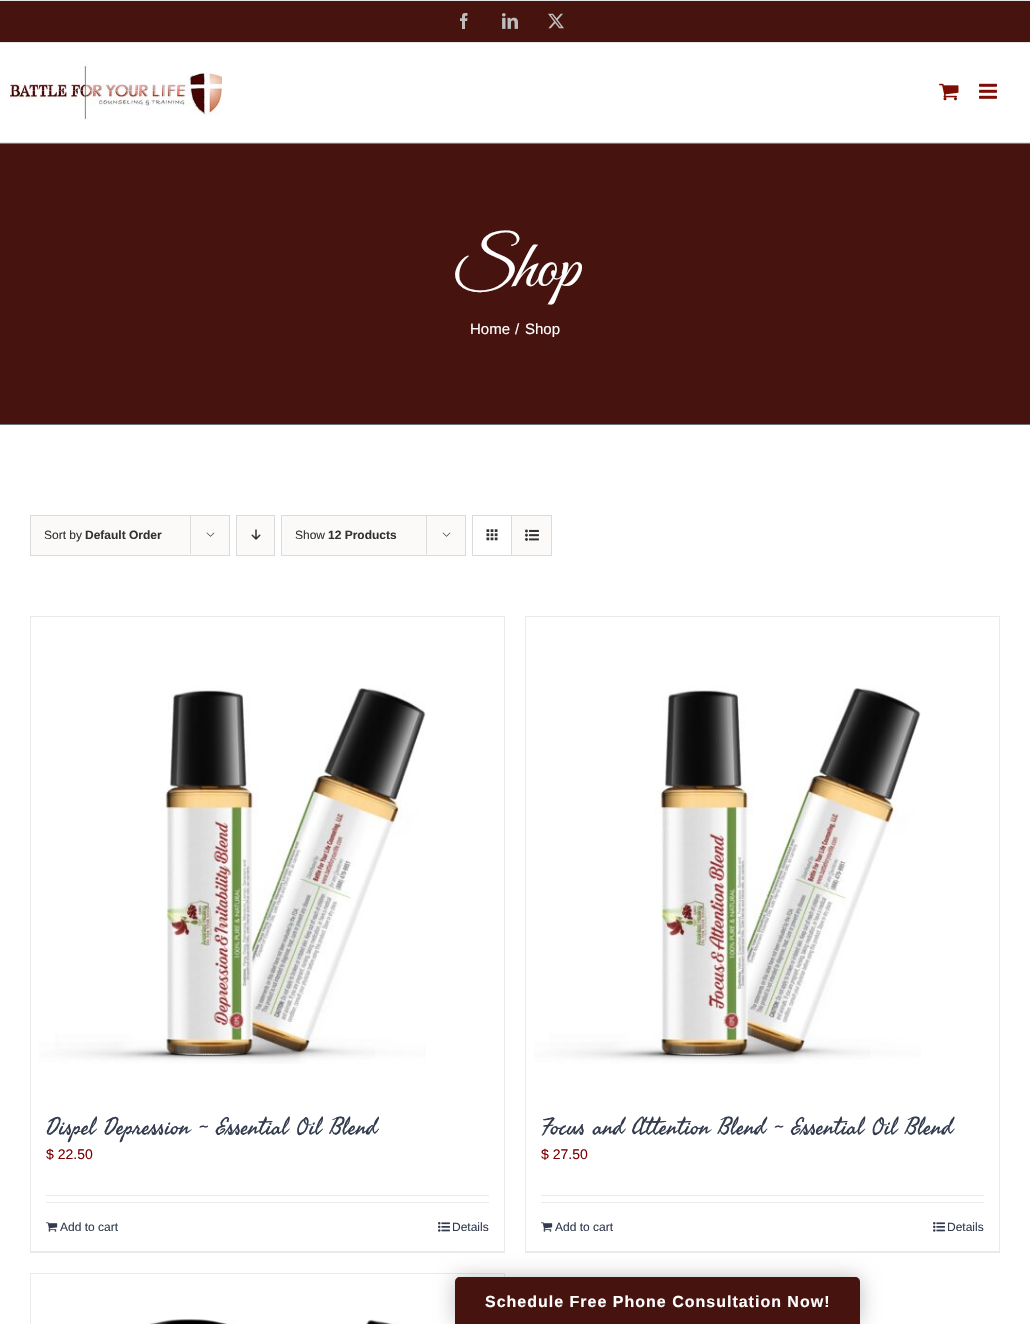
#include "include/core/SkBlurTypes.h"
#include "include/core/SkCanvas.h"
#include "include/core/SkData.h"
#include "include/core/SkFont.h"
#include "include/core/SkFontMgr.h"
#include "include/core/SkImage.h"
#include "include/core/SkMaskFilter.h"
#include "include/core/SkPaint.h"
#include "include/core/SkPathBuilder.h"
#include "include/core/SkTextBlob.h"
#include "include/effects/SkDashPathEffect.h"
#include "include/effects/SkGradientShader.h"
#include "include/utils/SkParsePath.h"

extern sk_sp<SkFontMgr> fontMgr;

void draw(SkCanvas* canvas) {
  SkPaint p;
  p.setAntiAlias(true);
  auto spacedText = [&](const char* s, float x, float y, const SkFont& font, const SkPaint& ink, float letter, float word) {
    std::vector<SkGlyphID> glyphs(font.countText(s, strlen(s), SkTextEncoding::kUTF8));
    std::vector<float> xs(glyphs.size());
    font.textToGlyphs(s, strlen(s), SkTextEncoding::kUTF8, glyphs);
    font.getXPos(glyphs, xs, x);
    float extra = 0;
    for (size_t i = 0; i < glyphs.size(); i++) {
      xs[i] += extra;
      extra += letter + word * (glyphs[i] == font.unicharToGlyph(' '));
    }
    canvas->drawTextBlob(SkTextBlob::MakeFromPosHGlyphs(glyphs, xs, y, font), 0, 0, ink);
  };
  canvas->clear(SK_ColorWHITE);
  p.setColor(SkColorSetRGB(70, 19, 15));
  canvas->drawRect(SkRect::MakeLTRB(0, 1, 1030, 42), p);
  p.setColor(SkColorSetRGB(229, 229, 229));
  canvas->drawRect(SkRect::MakeLTRB(0, 42, 1030, 43), p);
  canvas->drawRect(SkRect::MakeLTRB(0, 0, 1030, 1), p);
  canvas->drawImageRect(SkImages::DeferredFromEncodedData(SkData::MakeFromFileName("images/1.png")), SkRect::MakeLTRB(460, 13, 468, 29), SkSamplingOptions());
  canvas->drawImageRect(SkImages::DeferredFromEncodedData(SkData::MakeFromFileName("images/2.png")), SkRect::MakeLTRB(502, 13, 518, 29), SkSamplingOptions());
  canvas->drawImageRect(SkImages::DeferredFromEncodedData(SkData::MakeFromFileName("images/3.png")), SkRect::MakeLTRB(548, 13, 564, 29), SkSamplingOptions());
  canvas->drawRect(SkRect::MakeLTRB(0, 142, 1030, 143), p);
  canvas->drawImageRect(SkImages::DeferredFromEncodedData(SkData::MakeFromFileName("images/4.png")), SkRect::MakeLTRB(10, 63, 222, 120), SkSamplingOptions());
  canvas->drawImageRect(SkImages::DeferredFromEncodedData(SkData::MakeFromFileName("images/5.png")), SkRect::MakeLTRB(939, 83, 959, 101), SkSamplingOptions());
  canvas->drawImageRect(SkImages::DeferredFromEncodedData(SkData::MakeFromFileName("images/6.png")), SkRect::MakeLTRB(979, 83, 997, 99), SkSamplingOptions());
  p.setColor(SkColorSetRGB(70, 19, 15));
  canvas->drawRect(SkRect::MakeLTRB(0, 144, 1030, 424), p);
  p.setColor(SkColorSetRGB(107, 117, 128));
  canvas->drawRect(SkRect::MakeLTRB(0, 143, 1030, 144), p);
  canvas->drawRect(SkRect::MakeLTRB(0, 424, 1030, 425), p);
  p.setColor(SkColorSetRGB(251, 250, 249));
  canvas->drawRect(SkRect::MakeLTRB(30.5f, 515.5f, 229.5f, 555.5f), p);
  p.setStyle(SkPaint::kStroke_Style);
  p.setStrokeWidth(1);
  p.setColor(SkColorSetRGB(219, 219, 219));
  canvas->drawRect(SkRect::MakeLTRB(30.5f, 515.5f, 229.5f, 555.5f), p);
  p.setStyle(SkPaint::kFill_Style);
  canvas->drawRect(SkRect::MakeLTRB(190, 515, 191, 554), p);
  canvas->drawImageRect(SkImages::DeferredFromEncodedData(SkData::MakeFromFileName("images/7.png")), SkRect::MakeLTRB(206, 532, 215, 537), SkSamplingOptions());
  p.setColor(SkColorSetRGB(251, 250, 249));
  canvas->drawRect(SkRect::MakeLTRB(236.5f, 515.5f, 274.5f, 555.5f), p);
  p.setStyle(SkPaint::kStroke_Style);
  p.setColor(SkColorSetRGB(219, 219, 219));
  canvas->drawRect(SkRect::MakeLTRB(236.5f, 515.5f, 274.5f, 555.5f), p);
  canvas->drawImageRect(SkImages::DeferredFromEncodedData(SkData::MakeFromFileName("images/8.png")), SkRect::MakeLTRB(251, 529, 261, 540), SkSamplingOptions());
  p.setStyle(SkPaint::kFill_Style);
  p.setColor(SkColorSetRGB(251, 250, 249));
  canvas->drawRect(SkRect::MakeLTRB(281.5f, 515.5f, 465.5f, 555.5f), p);
  p.setStyle(SkPaint::kStroke_Style);
  p.setColor(SkColorSetRGB(219, 219, 219));
  canvas->drawRect(SkRect::MakeLTRB(281.5f, 515.5f, 465.5f, 555.5f), p);
  p.setStyle(SkPaint::kFill_Style);
  canvas->drawRect(SkRect::MakeLTRB(426, 515, 427, 554), p);
  canvas->drawImageRect(SkImages::DeferredFromEncodedData(SkData::MakeFromFileName("images/7.png")), SkRect::MakeLTRB(442, 532, 451, 537), SkSamplingOptions());
  p.setStyle(SkPaint::kStroke_Style);
  canvas->drawRect(SkRect::MakeLTRB(472.5f, 515.5f, 551.5f, 555.5f), p);
  p.setStyle(SkPaint::kFill_Style);
  canvas->drawRect(SkRect::MakeLTRB(511, 516, 512, 555), p);
  canvas->drawImageRect(SkImages::DeferredFromEncodedData(SkData::MakeFromFileName("images/9.png")), SkRect::MakeLTRB(486, 529, 498, 541), SkSamplingOptions());
  p.setColor(SkColorSetRGB(251, 250, 249));
  canvas->drawRect(SkRect::MakeLTRB(512, 516, 551, 555), p);
  canvas->drawImageRect(SkImages::DeferredFromEncodedData(SkData::MakeFromFileName("images/10.png")), SkRect::MakeLTRB(525, 529, 539, 541), SkSamplingOptions());
  p.setColor(SkColorSetRGB(235, 234, 234));
  canvas->drawRect(SkRect::MakeLTRB(30, 616, 505, 617), p);
  canvas->drawRect(SkRect::MakeLTRB(504, 616, 505, 1253), p);
  canvas->drawRect(SkRect::MakeLTRB(30, 1251, 505, 1253), p);
  canvas->drawRect(SkRect::MakeLTRB(30, 616, 31, 1253), p);
  canvas->drawImageRect(SkImages::DeferredFromEncodedData(SkData::MakeFromFileName("images/11.png")), SkRect::MakeLTRB(39, 686, 426, 1064), SkSamplingOptions());
  canvas->drawRect(SkRect::MakeLTRB(46, 1195, 489, 1196), p);
  canvas->drawRect(SkRect::MakeLTRB(46, 1202, 489, 1203), p);
  canvas->drawImageRect(SkImages::DeferredFromEncodedData(SkData::MakeFromFileName("images/12.png")), SkRect::MakeLTRB(46, 1222, 58, 1232), SkSamplingOptions());
  canvas->drawImageRect(SkImages::DeferredFromEncodedData(SkData::MakeFromFileName("images/13.png")), SkRect::MakeLTRB(438, 1222, 450, 1232), SkSamplingOptions());
  canvas->drawRect(SkRect::MakeLTRB(525, 616, 1000, 617), p);
  canvas->drawRect(SkRect::MakeLTRB(999, 616, 1000, 1253), p);
  canvas->drawRect(SkRect::MakeLTRB(525, 1251, 1000, 1253), p);
  canvas->drawRect(SkRect::MakeLTRB(525, 616, 526, 1253), p);
  canvas->drawImageRect(SkImages::DeferredFromEncodedData(SkData::MakeFromFileName("images/14.png")), SkRect::MakeLTRB(534, 686, 921, 1064), SkSamplingOptions());
  canvas->drawRect(SkRect::MakeLTRB(541, 1195, 984, 1196), p);
  canvas->drawRect(SkRect::MakeLTRB(541, 1202, 984, 1203), p);
  canvas->drawImageRect(SkImages::DeferredFromEncodedData(SkData::MakeFromFileName("images/12.png")), SkRect::MakeLTRB(541, 1222, 553, 1232), SkSamplingOptions());
  canvas->drawImageRect(SkImages::DeferredFromEncodedData(SkData::MakeFromFileName("images/13.png")), SkRect::MakeLTRB(933, 1222, 945, 1232), SkSamplingOptions());
  canvas->drawRect(SkRect::MakeLTRB(30, 1273, 505, 1274), p);
  canvas->drawRect(SkRect::MakeLTRB(504, 1273, 505, 1277), p);
  canvas->drawRect(SkRect::MakeLTRB(30, 1273, 31, 1324), p);
  canvas->drawImageRect(SkImages::DeferredFromEncodedData(SkData::MakeFromFileName("images/15.png")), SkRect::MakeLTRB(147, 1319, 402, 1324), SkSamplingOptions());
  p.setColor(SkColorSetARGB(64, 0, 0, 0));
  p.setMaskFilter(SkMaskFilter::MakeBlur(kNormal_SkBlurStyle, 10));
  canvas->drawRoundRect(SkRect::MakeLTRB(455, 1277, 860, 1324), 5, 5, p);
  p.setMaskFilter(nullptr);
  p.setColor(SkColorSetRGB(70, 19, 15));
  canvas->drawPath(SkPathBuilder().moveTo(460, 1277).lineTo(855, 1277).cubicTo(858, 1277, 860, 1279, 860, 1282).lineTo(860, 1324).lineTo(455, 1324).lineTo(455, 1282).cubicTo(455, 1279, 457, 1277, 460, 1277).close().detach(), p);
  SkFont font1(fontMgr->matchFamilyStyle("Great Vibes", SkFontStyle::Normal()), 68);
  font1.setSubpixel(true);
  p.setColor(SK_ColorWHITE);
  spacedText("Shop", 452, 286, font1, p, -1, 0);
  SkFont font2(fontMgr->matchFamilyStyle("Liberation Sans", SkFontStyle::Normal()), 15);
  font2.setSubpixel(true);
  canvas->drawString("Home", 470, 334, font2, p);
  canvas->drawString("/", 515, 334, font2, p);
  canvas->drawString("Shop", 525, 334, font2, p);
  SkFont font3(fontMgr->matchFamilyStyle("Liberation Sans", SkFontStyle::Normal()), 12);
  font3.setSubpixel(true);
  p.setColor(SkColorSetRGB(51, 51, 51));
  canvas->drawString("Sort by", 44, 539, font3, p);
  SkFont font4(fontMgr->matchFamilyStyle("Liberation Sans", SkFontStyle::Bold()), 12);
  font4.setSubpixel(true);
  canvas->drawString("Default Order", 85, 539, font4, p);
  canvas->drawString("Show", 295, 539, font3, p);
  canvas->drawString("12 Products", 328, 539, font4, p);
  SkFont font5(fontMgr->matchFamilyStyle("Fasthand", SkFontStyle::Normal()), 23.75f);
  font5.setSubpixel(true);
  p.setColor(SkColorSetRGB(51, 60, 78));
  canvas->drawString("Dispel Depression ~ Essential Oil Blend", 46, 1134, font5, p);
  SkFont font6(fontMgr->matchFamilyStyle("Liberation Sans", SkFontStyle::Normal()), 14);
  font6.setSubpixel(true);
  p.setColor(SkColorSetRGB(124, 2, 2));
  canvas->drawString("$ 22.50", 46, 1159, font6, p);
  p.setColor(SkColorSetRGB(51, 60, 78));
  canvas->drawString("Add to cart", 60, 1231, font3, p);
  canvas->drawString("Details", 452, 1231, font3, p);
  canvas->drawString("Focus and Attention Blend ~ Essential Oil Blend", 541, 1134, font5, p);
  p.setColor(SkColorSetRGB(124, 2, 2));
  canvas->drawString("$ 27.50", 541, 1159, font6, p);
  p.setColor(SkColorSetRGB(51, 60, 78));
  canvas->drawString("Add to cart", 555, 1231, font3, p);
  canvas->drawString("Details", 947, 1231, font3, p);
  SkFont font7(fontMgr->matchFamilyStyle("Liberation Sans", SkFontStyle::Bold()), 16);
  font7.setSubpixel(true);
  p.setColor(SK_ColorWHITE);
  spacedText("Schedule Free Phone Consultation Now!", 485, 1307, font7, p, 1, 0);
}
